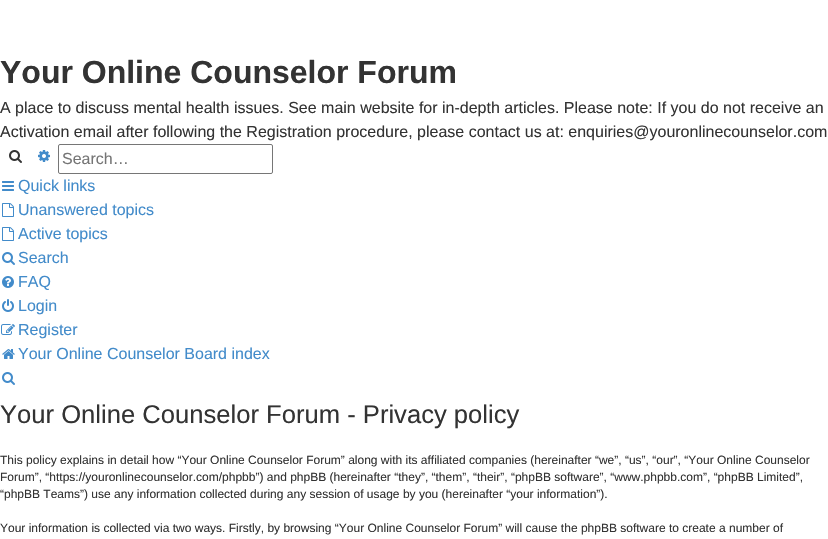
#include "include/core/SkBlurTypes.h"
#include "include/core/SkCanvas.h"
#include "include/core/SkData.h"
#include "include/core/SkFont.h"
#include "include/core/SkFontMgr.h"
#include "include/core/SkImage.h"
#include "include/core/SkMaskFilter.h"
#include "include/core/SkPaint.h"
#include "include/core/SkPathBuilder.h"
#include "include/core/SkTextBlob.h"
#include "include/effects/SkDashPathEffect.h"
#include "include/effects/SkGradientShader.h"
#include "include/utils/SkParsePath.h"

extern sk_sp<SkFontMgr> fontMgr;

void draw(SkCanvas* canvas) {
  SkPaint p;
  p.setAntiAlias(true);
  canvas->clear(SK_ColorWHITE);
  canvas->drawImageRect(SkImages::DeferredFromEncodedData(SkData::MakeFromFileName("images/1.png")), SkRect::MakeLTRB(9, 150, 22, 163), SkSamplingOptions());
  canvas->drawImageRect(SkImages::DeferredFromEncodedData(SkData::MakeFromFileName("images/2.png")), SkRect::MakeLTRB(38, 150, 50, 162), SkSamplingOptions());
  p.setStyle(SkPaint::kStroke_Style);
  p.setStrokeWidth(1);
  p.setColor(SkColorSetRGB(118, 118, 118));
  canvas->drawRoundRect(SkRect::MakeLTRB(58.5f, 144.5f, 272.5f, 173.5f), 1.5f, 1.5f, p);
  canvas->drawImageRect(SkImages::DeferredFromEncodedData(SkData::MakeFromFileName("images/3.png")), SkRect::MakeLTRB(2, 181, 14, 191), SkSamplingOptions());
  canvas->drawImageRect(SkImages::DeferredFromEncodedData(SkData::MakeFromFileName("images/4.png")), SkRect::MakeLTRB(2, 203, 14, 217), SkSamplingOptions());
  canvas->drawImageRect(SkImages::DeferredFromEncodedData(SkData::MakeFromFileName("images/4.png")), SkRect::MakeLTRB(2, 227, 14, 241), SkSamplingOptions());
  canvas->drawImageRect(SkImages::DeferredFromEncodedData(SkData::MakeFromFileName("images/5.png")), SkRect::MakeLTRB(2, 252, 15, 265), SkSamplingOptions());
  canvas->drawImageRect(SkImages::DeferredFromEncodedData(SkData::MakeFromFileName("images/6.png")), SkRect::MakeLTRB(2, 276, 14, 288), SkSamplingOptions());
  canvas->drawImageRect(SkImages::DeferredFromEncodedData(SkData::MakeFromFileName("images/7.png")), SkRect::MakeLTRB(2, 299, 14, 312), SkSamplingOptions());
  canvas->drawImageRect(SkImages::DeferredFromEncodedData(SkData::MakeFromFileName("images/8.png")), SkRect::MakeLTRB(1, 324, 15, 335), SkSamplingOptions());
  canvas->drawImageRect(SkImages::DeferredFromEncodedData(SkData::MakeFromFileName("images/9.png")), SkRect::MakeLTRB(2, 349, 15, 359), SkSamplingOptions());
  canvas->drawImageRect(SkImages::DeferredFromEncodedData(SkData::MakeFromFileName("images/5.png")), SkRect::MakeLTRB(2, 372, 15, 385), SkSamplingOptions());
  SkFont font1(fontMgr->matchFamilyStyle("Liberation Sans", SkFontStyle::Bold()), 32);
  font1.setSubpixel(true);
  p.setStyle(SkPaint::kFill_Style);
  p.setColor(SkColorSetRGB(51, 51, 51));
  canvas->drawString("Your Online Counselor Forum", 0, 83, font1, p);
  SkFont font2(fontMgr->matchFamilyStyle("Liberation Sans", SkFontStyle::Normal()), 16);
  font2.setSubpixel(true);
  canvas->drawString("A place to discuss mental health issues. See main website for in-depth articles. Please note: If you do not receive an", 0, 113, font2, p);
  canvas->drawString("Activation email after following the Registration procedure, please contact us at: enquiries@youronlinecounselor.com", 0, 137, font2, p);
  p.setColor(SkColorSetRGB(117, 117, 117));
  canvas->drawString("Search…", 62, 164, font2, p);
  p.setColor(SkColorSetRGB(66, 139, 202));
  canvas->drawString("Quick links", 18, 191, font2, p);
  canvas->drawString("Unanswered topics", 18, 215, font2, p);
  canvas->drawString("Active topics", 18, 239, font2, p);
  canvas->drawString("Search", 18, 263, font2, p);
  canvas->drawString("FAQ", 18, 287, font2, p);
  canvas->drawString("Login", 18, 311, font2, p);
  canvas->drawString("Register", 18, 335, font2, p);
  canvas->drawString("Your Online Counselor Board index", 18, 359, font2, p);
  SkFont font3(fontMgr->matchFamilyStyle("Liberation Sans", SkFontStyle::Normal()), 25.6f);
  font3.setSubpixel(true);
  p.setColor(SkColorSetRGB(51, 51, 51));
  canvas->drawString("Your Online Counselor Forum - Privacy policy", 0, 423, font3, p);
  SkFont font4(fontMgr->matchFamilyStyle("Liberation Sans", SkFontStyle::Normal()), 12);
  font4.setSubpixel(true);
  canvas->drawString("This policy explains in detail how “Your Online Counselor Forum” along with its affiliated companies (hereinafter “we”, “us”, “our”, “Your Online Counselor", 0, 464, font4, p);
  canvas->drawString("Forum”, “https://youronlinecounselor.com/phpbb”) and phpBB (hereinafter “they”, “them”, “their”, “phpBB software”, “www.phpbb.com”, “phpBB Limited”,", 0, 481, font4, p);
  canvas->drawString("“phpBB Teams”) use any information collected during any session of usage by you (hereinafter “your information”).", 0, 498, font4, p);
  canvas->drawString("Your information is collected via two ways. Firstly, by browsing “Your Online Counselor Forum” will cause the phpBB software to create a number of", 0, 532, font4, p);
}
